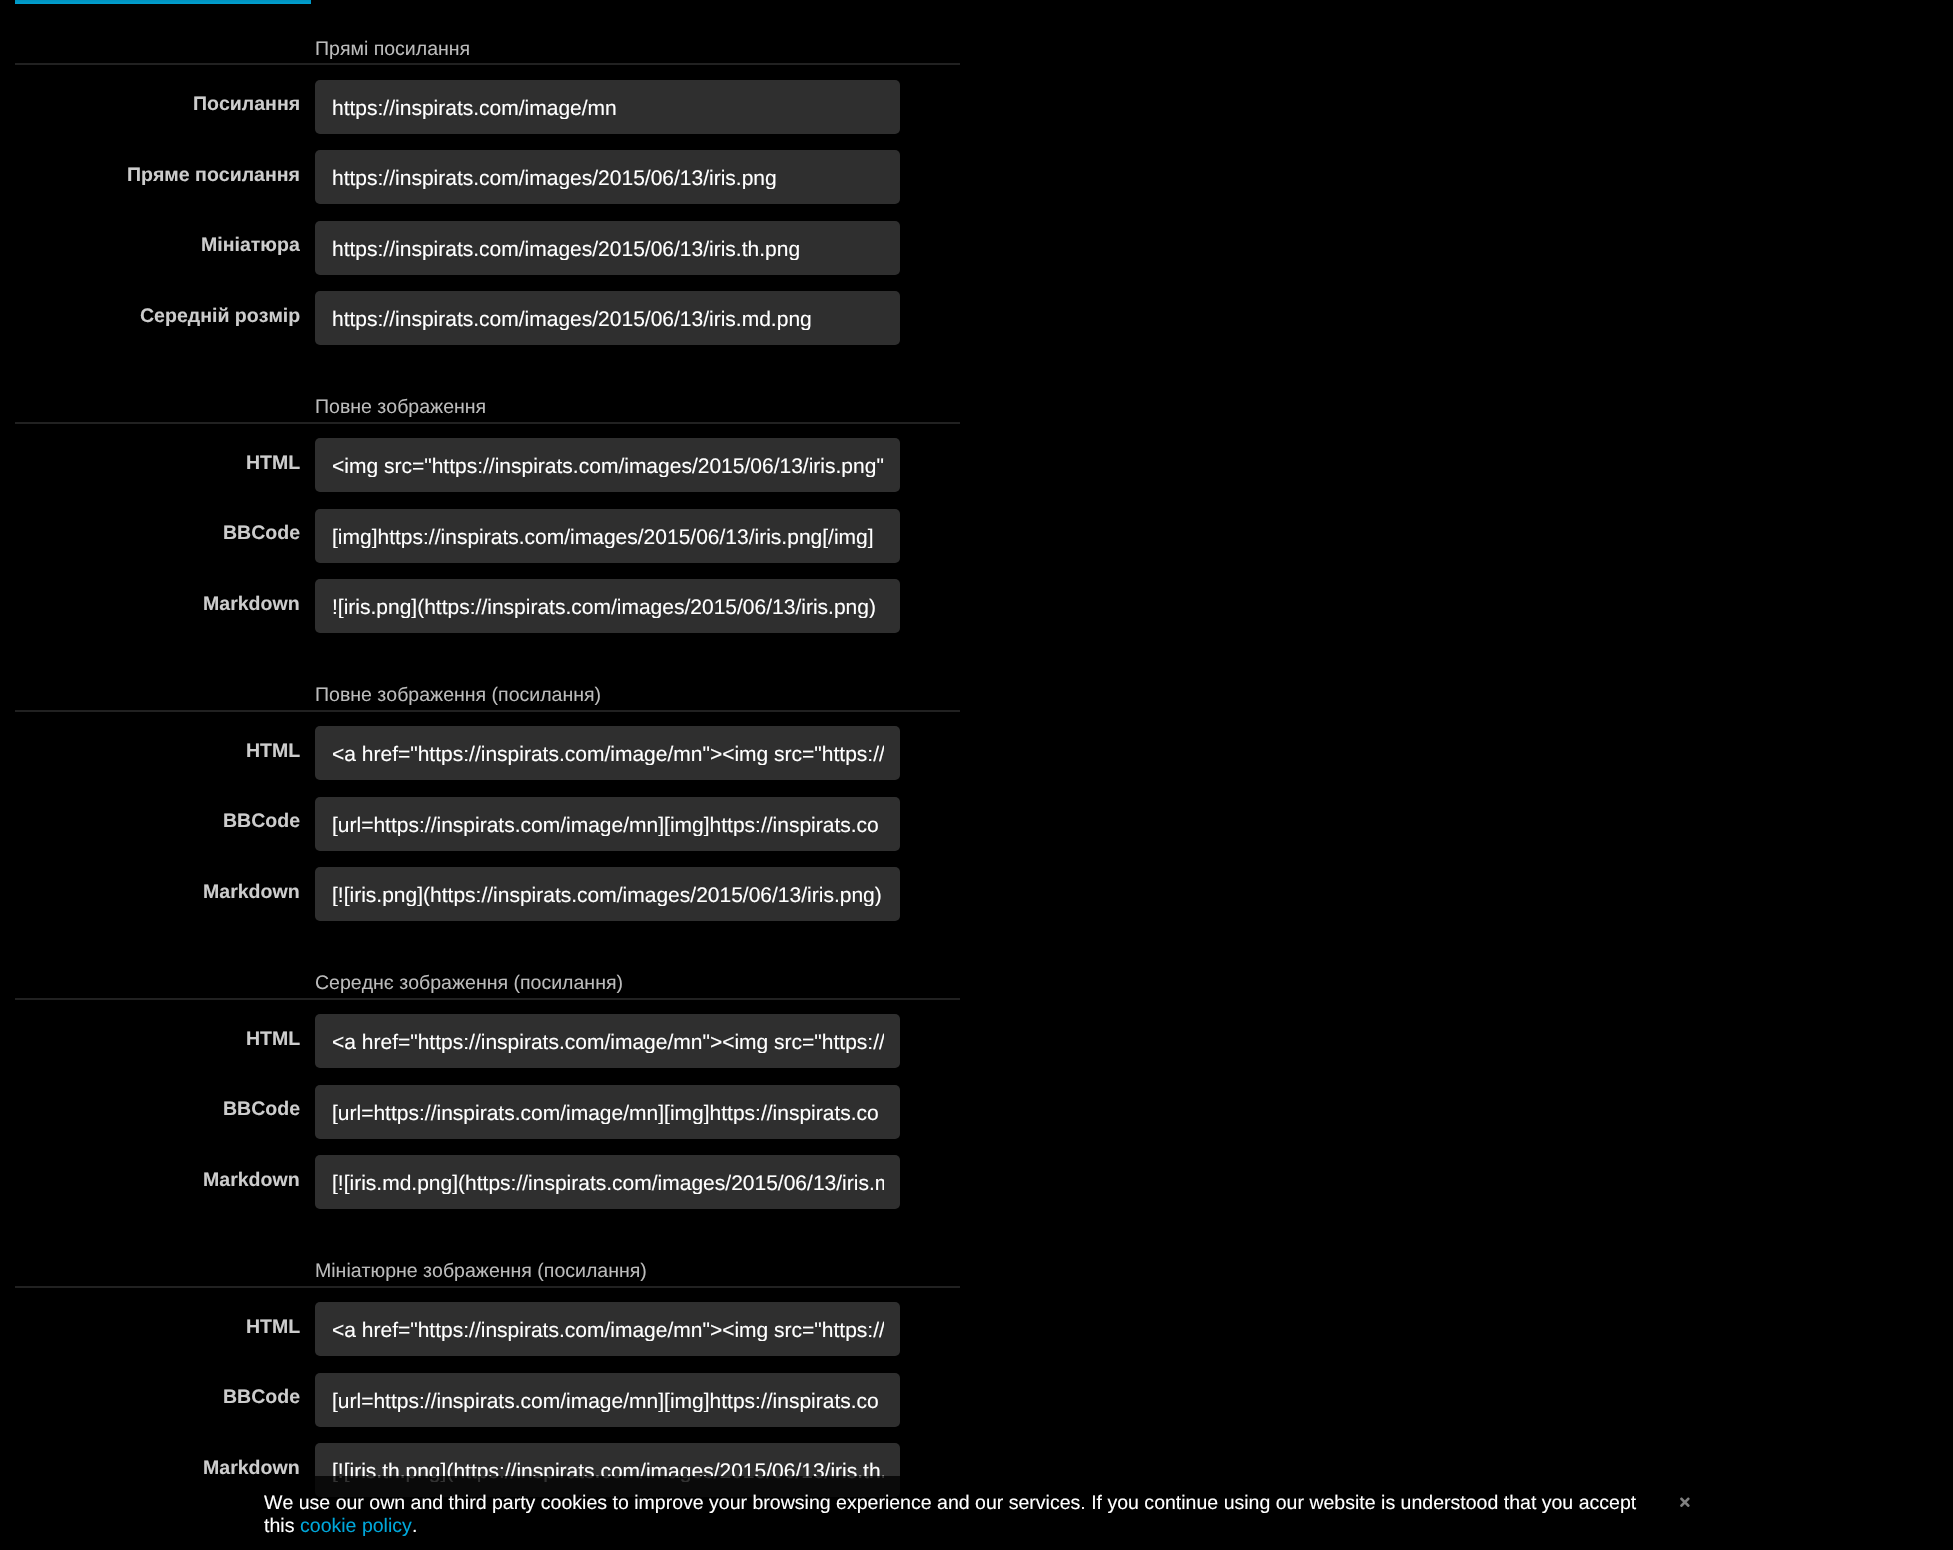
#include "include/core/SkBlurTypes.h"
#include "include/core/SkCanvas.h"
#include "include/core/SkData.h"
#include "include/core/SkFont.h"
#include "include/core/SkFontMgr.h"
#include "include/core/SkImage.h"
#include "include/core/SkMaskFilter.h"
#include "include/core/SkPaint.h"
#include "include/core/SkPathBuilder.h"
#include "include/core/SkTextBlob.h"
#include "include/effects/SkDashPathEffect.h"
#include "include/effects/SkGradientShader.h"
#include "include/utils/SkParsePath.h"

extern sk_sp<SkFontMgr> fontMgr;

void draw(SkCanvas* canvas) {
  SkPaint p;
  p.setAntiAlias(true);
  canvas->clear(SK_ColorBLACK);
  p.setColor(SkColorSetRGB(0, 167, 218));
  canvas->drawRect(SkRect::MakeLTRB(15, 0, 311, 4), p);
  p.setColor(SkColorSetARGB(64, 0, 0, 0));
  p.setMaskFilter(SkMaskFilter::MakeBlur(kNormal_SkBlurStyle, 4));
  canvas->drawRect(SkRect::MakeLTRB(0, -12, 1953, 0), p);
  p.setMaskFilter(nullptr);
  p.setColor(SkColorSetRGB(33, 33, 33));
  canvas->drawRect(SkRect::MakeLTRB(15, 63, 960, 65), p);
  p.setColor(SkColorSetRGB(47, 47, 47));
  canvas->drawRoundRect(SkRect::MakeLTRB(315, 80, 900, 134), 5, 5, p);
  canvas->drawRoundRect(SkRect::MakeLTRB(315, 150, 900, 204), 5, 5, p);
  canvas->drawRoundRect(SkRect::MakeLTRB(315, 221, 900, 275), 5, 5, p);
  canvas->drawRoundRect(SkRect::MakeLTRB(315, 291, 900, 345), 5, 5, p);
  p.setColor(SkColorSetRGB(33, 33, 33));
  canvas->drawRect(SkRect::MakeLTRB(15, 422, 960, 424), p);
  p.setColor(SkColorSetRGB(47, 47, 47));
  canvas->drawRoundRect(SkRect::MakeLTRB(315, 438, 900, 492), 5, 5, p);
  canvas->drawRoundRect(SkRect::MakeLTRB(315, 509, 900, 563), 5, 5, p);
  canvas->drawRoundRect(SkRect::MakeLTRB(315, 579, 900, 633), 5, 5, p);
  p.setColor(SkColorSetRGB(33, 33, 33));
  canvas->drawRect(SkRect::MakeLTRB(15, 710, 960, 712), p);
  p.setColor(SkColorSetRGB(47, 47, 47));
  canvas->drawRoundRect(SkRect::MakeLTRB(315, 726, 900, 780), 5, 5, p);
  canvas->drawRoundRect(SkRect::MakeLTRB(315, 797, 900, 851), 5, 5, p);
  canvas->drawRoundRect(SkRect::MakeLTRB(315, 867, 900, 921), 5, 5, p);
  p.setColor(SkColorSetRGB(33, 33, 33));
  canvas->drawRect(SkRect::MakeLTRB(15, 998, 960, 1000), p);
  p.setColor(SkColorSetRGB(47, 47, 47));
  canvas->drawRoundRect(SkRect::MakeLTRB(315, 1014, 900, 1068), 5, 5, p);
  canvas->drawRoundRect(SkRect::MakeLTRB(315, 1085, 900, 1139), 5, 5, p);
  canvas->drawRoundRect(SkRect::MakeLTRB(315, 1155, 900, 1209), 5, 5, p);
  p.setColor(SkColorSetRGB(33, 33, 33));
  canvas->drawRect(SkRect::MakeLTRB(15, 1286, 960, 1288), p);
  p.setColor(SkColorSetRGB(47, 47, 47));
  canvas->drawRoundRect(SkRect::MakeLTRB(315, 1302, 900, 1356), 5, 5, p);
  canvas->drawRoundRect(SkRect::MakeLTRB(315, 1373, 900, 1427), 5, 5, p);
  canvas->drawRoundRect(SkRect::MakeLTRB(315, 1443, 900, 1497), 5, 5, p);
  canvas->drawImageRect(SkImages::DeferredFromEncodedData(SkData::MakeFromFileName("images/1.png")), SkRect::MakeLTRB(1680, 1497, 1690, 1507), SkSamplingOptions());
  SkFont font1(fontMgr->matchFamilyStyle("Liberation Sans", SkFontStyle::Normal()), 19.53f);
  font1.setSubpixel(true);
  p.setColor(SkColorSetRGB(187, 187, 187));
  canvas->drawString("Прямі посилання", 315, 55, font1, p);
  SkFont font2(fontMgr->matchFamilyStyle("Liberation Sans", SkFontStyle::Bold()), 19.53f);
  font2.setSubpixel(true);
  p.setColor(SkColorSetRGB(204, 204, 204));
  canvas->drawString("Посилання", 193, 110, font2, p);
  canvas->save();
  canvas->clipRect(SkRect::MakeLTRB(332, 95, 884, 119));
  SkFont font3(fontMgr->matchFamilyStyle("Liberation Sans", SkFontStyle::Normal()), 21);
  font3.setSubpixel(true);
  p.setColor(SK_ColorWHITE);
  canvas->drawString("https://inspirats.com/image/mn", 332, 115, font3, p);
  canvas->restore();
  p.setColor(SkColorSetRGB(204, 204, 204));
  canvas->drawString("Пряме посилання", 127, 181, font2, p);
  canvas->save();
  canvas->clipRect(SkRect::MakeLTRB(332, 165, 884, 189));
  p.setColor(SK_ColorWHITE);
  canvas->drawString("https://inspirats.com/images/2015/06/13/iris.png", 332, 185, font3, p);
  canvas->restore();
  p.setColor(SkColorSetRGB(204, 204, 204));
  canvas->drawString("Мініатюра", 201, 251, font2, p);
  canvas->save();
  canvas->clipRect(SkRect::MakeLTRB(332, 236, 884, 260));
  p.setColor(SK_ColorWHITE);
  canvas->drawString("https://inspirats.com/images/2015/06/13/iris.th.png", 332, 256, font3, p);
  canvas->restore();
  p.setColor(SkColorSetRGB(204, 204, 204));
  canvas->drawString("Середній розмір", 140, 322, font2, p);
  canvas->save();
  canvas->clipRect(SkRect::MakeLTRB(332, 306, 884, 330));
  p.setColor(SK_ColorWHITE);
  canvas->drawString("https://inspirats.com/images/2015/06/13/iris.md.png", 332, 326, font3, p);
  canvas->restore();
  p.setColor(SkColorSetRGB(187, 187, 187));
  canvas->drawString("Повне зображення", 315, 413, font1, p);
  p.setColor(SkColorSetRGB(204, 204, 204));
  canvas->drawString("HTML", 246, 469, font2, p);
  canvas->save();
  canvas->clipRect(SkRect::MakeLTRB(332, 453, 884, 477));
  p.setColor(SK_ColorWHITE);
  canvas->drawString("<img src=\"https://inspirats.com/images/2015/06/13/iris.png\"", 332, 473, font3, p);
  canvas->restore();
  p.setColor(SkColorSetRGB(204, 204, 204));
  canvas->drawString("BBCode", 223, 539, font2, p);
  canvas->save();
  canvas->clipRect(SkRect::MakeLTRB(332, 524, 884, 548));
  p.setColor(SK_ColorWHITE);
  canvas->drawString("[img]https://inspirats.com/images/2015/06/13/iris.png[/img]", 332, 544, font3, p);
  canvas->restore();
  p.setColor(SkColorSetRGB(204, 204, 204));
  canvas->drawString("Markdown", 203, 610, font2, p);
  canvas->save();
  canvas->clipRect(SkRect::MakeLTRB(332, 594, 884, 618));
  p.setColor(SK_ColorWHITE);
  canvas->drawString("![iris.png](https://inspirats.com/images/2015/06/13/iris.png)", 332, 614, font3, p);
  canvas->restore();
  p.setColor(SkColorSetRGB(187, 187, 187));
  canvas->drawString("Повне зображення (посилання)", 315, 701, font1, p);
  p.setColor(SkColorSetRGB(204, 204, 204));
  canvas->drawString("HTML", 246, 757, font2, p);
  canvas->save();
  canvas->clipRect(SkRect::MakeLTRB(332, 741, 884, 765));
  p.setColor(SK_ColorWHITE);
  canvas->drawString("<a href=\"https://inspirats.com/image/mn\"><img src=\"https://", 332, 761, font3, p);
  canvas->restore();
  p.setColor(SkColorSetRGB(204, 204, 204));
  canvas->drawString("BBCode", 223, 827, font2, p);
  canvas->save();
  canvas->clipRect(SkRect::MakeLTRB(332, 812, 884, 836));
  p.setColor(SK_ColorWHITE);
  canvas->drawString("[url=https://inspirats.com/image/mn][img]https://inspirats.co", 332, 832, font3, p);
  canvas->restore();
  p.setColor(SkColorSetRGB(204, 204, 204));
  canvas->drawString("Markdown", 203, 898, font2, p);
  canvas->save();
  canvas->clipRect(SkRect::MakeLTRB(332, 882, 884, 906));
  p.setColor(SK_ColorWHITE);
  canvas->drawString("[![iris.png](https://inspirats.com/images/2015/06/13/iris.png)", 332, 902, font3, p);
  canvas->restore();
  p.setColor(SkColorSetRGB(187, 187, 187));
  canvas->drawString("Середнє зображення (посилання)", 315, 989, font1, p);
  p.setColor(SkColorSetRGB(204, 204, 204));
  canvas->drawString("HTML", 246, 1045, font2, p);
  canvas->save();
  canvas->clipRect(SkRect::MakeLTRB(332, 1029, 884, 1053));
  p.setColor(SK_ColorWHITE);
  canvas->drawString("<a href=\"https://inspirats.com/image/mn\"><img src=\"https://", 332, 1049, font3, p);
  canvas->restore();
  p.setColor(SkColorSetRGB(204, 204, 204));
  canvas->drawString("BBCode", 223, 1115, font2, p);
  canvas->save();
  canvas->clipRect(SkRect::MakeLTRB(332, 1100, 884, 1124));
  p.setColor(SK_ColorWHITE);
  canvas->drawString("[url=https://inspirats.com/image/mn][img]https://inspirats.co", 332, 1120, font3, p);
  canvas->restore();
  p.setColor(SkColorSetRGB(204, 204, 204));
  canvas->drawString("Markdown", 203, 1186, font2, p);
  canvas->save();
  canvas->clipRect(SkRect::MakeLTRB(332, 1170, 884, 1194));
  p.setColor(SK_ColorWHITE);
  canvas->drawString("[![iris.md.png](https://inspirats.com/images/2015/06/13/iris.m", 332, 1190, font3, p);
  canvas->restore();
  p.setColor(SkColorSetRGB(187, 187, 187));
  canvas->drawString("Мініатюрне зображення (посилання)", 315, 1277, font1, p);
  p.setColor(SkColorSetRGB(204, 204, 204));
  canvas->drawString("HTML", 246, 1333, font2, p);
  canvas->save();
  canvas->clipRect(SkRect::MakeLTRB(332, 1317, 884, 1341));
  p.setColor(SK_ColorWHITE);
  canvas->drawString("<a href=\"https://inspirats.com/image/mn\"><img src=\"https://", 332, 1337, font3, p);
  canvas->restore();
  p.setColor(SkColorSetRGB(204, 204, 204));
  canvas->drawString("BBCode", 223, 1403, font2, p);
  canvas->save();
  canvas->clipRect(SkRect::MakeLTRB(332, 1388, 884, 1412));
  p.setColor(SK_ColorWHITE);
  canvas->drawString("[url=https://inspirats.com/image/mn][img]https://inspirats.co", 332, 1408, font3, p);
  canvas->restore();
  p.setColor(SkColorSetRGB(204, 204, 204));
  canvas->drawString("Markdown", 203, 1474, font2, p);
  canvas->save();
  canvas->clipRect(SkRect::MakeLTRB(332, 1458, 884, 1482));
  p.setColor(SK_ColorWHITE);
  canvas->drawString("[![iris.th.png](https://inspirats.com/images/2015/06/13/iris.th.", 332, 1478, font3, p);
  canvas->restore();
  p.setColor(SkColorSetARGB(204, 0, 0, 0));
  canvas->drawRect(SkRect::MakeLTRB(315, 1476, 900, 1497), p);
  p.setColor(SK_ColorWHITE);
  canvas->drawString("We use our own and third party cookies to improve your browsing experience and our services. If you continue using our website is understood that you accept", 264, 1509, font1, p);
  canvas->drawString("this", 264, 1532, font1, p);
  p.setColor(SkColorSetRGB(0, 167, 218));
  canvas->drawString("cookie policy", 300, 1532, font1, p);
  p.setColor(SK_ColorWHITE);
  canvas->drawString(".", 412, 1532, font1, p);
}
